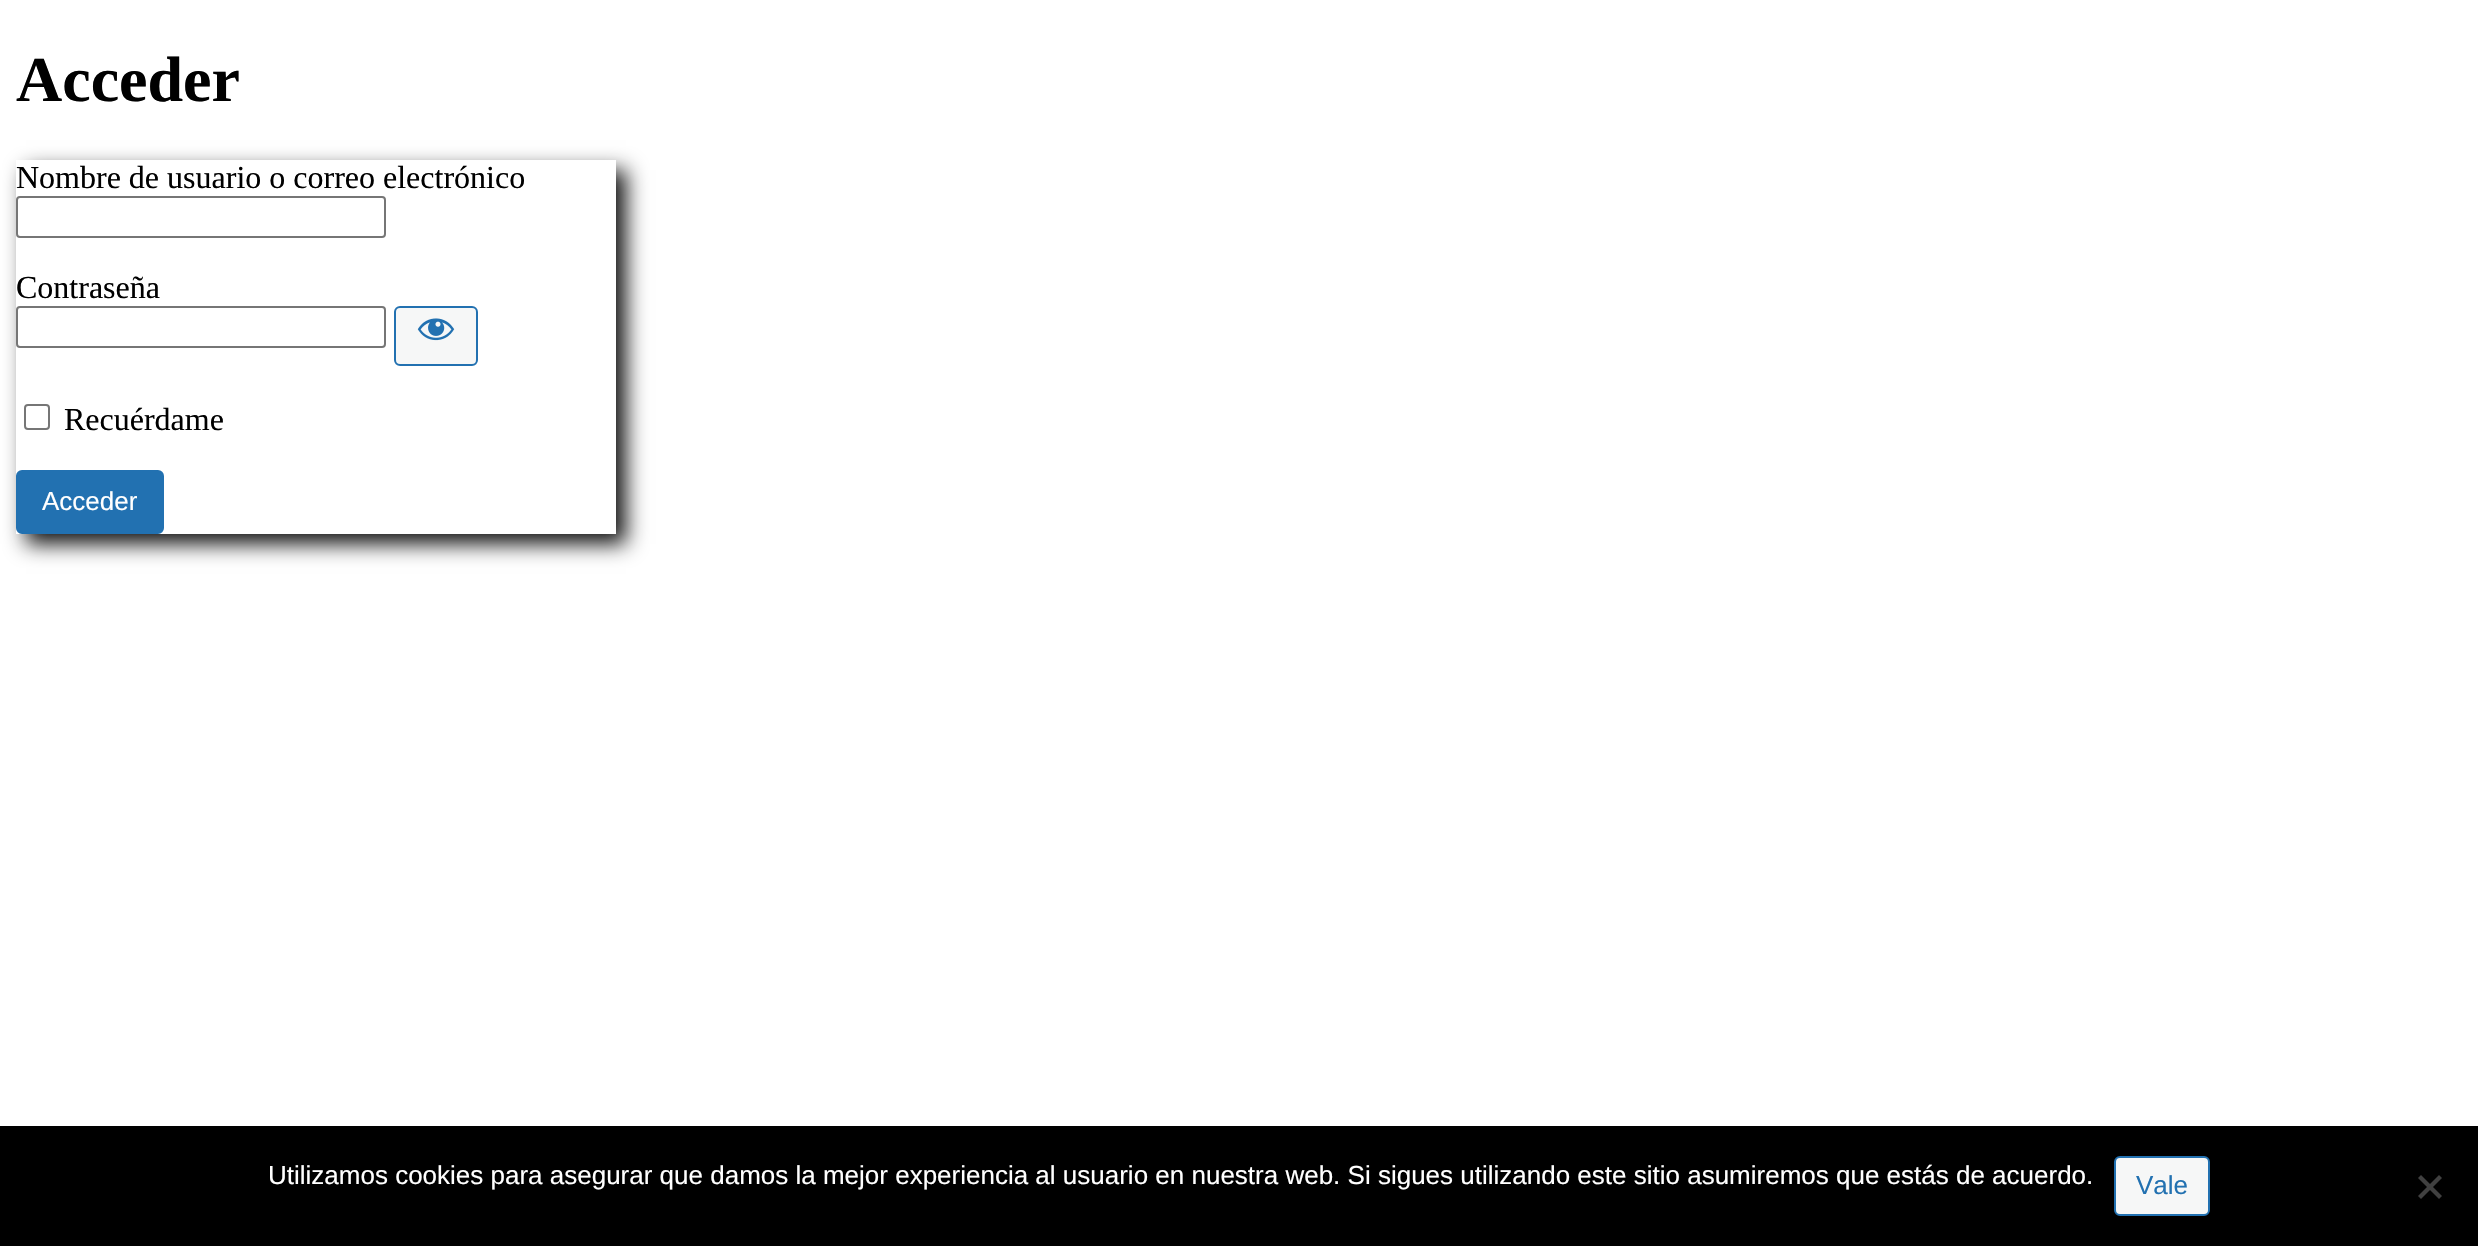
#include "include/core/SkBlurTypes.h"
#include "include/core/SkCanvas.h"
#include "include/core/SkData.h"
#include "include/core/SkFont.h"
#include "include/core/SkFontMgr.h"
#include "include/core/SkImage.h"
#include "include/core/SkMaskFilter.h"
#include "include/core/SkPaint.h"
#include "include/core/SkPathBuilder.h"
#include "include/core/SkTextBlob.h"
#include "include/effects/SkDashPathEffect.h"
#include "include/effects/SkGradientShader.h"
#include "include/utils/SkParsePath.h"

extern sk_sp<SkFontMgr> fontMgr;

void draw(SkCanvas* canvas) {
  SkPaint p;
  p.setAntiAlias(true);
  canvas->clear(SK_ColorWHITE);
  canvas->save();
  canvas->clipPath(SkPathBuilder(SkPathFillType::kEvenOdd).moveTo(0, 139).lineTo(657, 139).lineTo(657, 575).lineTo(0, 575).close().moveTo(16, 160).lineTo(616, 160).lineTo(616, 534).lineTo(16, 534).close().detach(), true);
  p.setColor(SkColorSetRGB(18, 18, 18));
  p.setMaskFilter(SkMaskFilter::MakeBlur(kNormal_SkBlurStyle, 10));
  canvas->drawRect(SkRect::MakeLTRB(26, 170, 626, 544), p);
  p.setMaskFilter(nullptr);
  canvas->restore();
  p.setStyle(SkPaint::kStroke_Style);
  p.setStrokeWidth(2);
  p.setColor(SkColorSetRGB(118, 118, 118));
  canvas->drawRoundRect(SkRect::MakeLTRB(17, 197, 385, 237), 3, 3, p);
  canvas->drawRoundRect(SkRect::MakeLTRB(17, 307, 385, 347), 3, 3, p);
  p.setStyle(SkPaint::kFill_Style);
  p.setColor(SkColorSetRGB(246, 247, 247));
  canvas->drawRoundRect(SkRect::MakeLTRB(395, 307, 477, 365), 5, 5, p);
  p.setStyle(SkPaint::kStroke_Style);
  p.setColor(SkColorSetRGB(34, 113, 177));
  canvas->drawRoundRect(SkRect::MakeLTRB(395, 307, 477, 365), 5, 5, p);
  canvas->drawImageRect(SkImages::DeferredFromEncodedData(SkData::MakeFromFileName("images/1.png")), SkRect::MakeLTRB(417, 318, 455, 341), SkSamplingOptions());
  p.setColor(SkColorSetRGB(118, 118, 118));
  canvas->drawRoundRect(SkRect::MakeLTRB(25, 405, 49, 429), 3, 3, p);
  p.setStyle(SkPaint::kFill_Style);
  p.setColor(SkColorSetRGB(34, 113, 177));
  canvas->drawRoundRect(SkRect::MakeLTRB(17, 471, 163, 533), 5, 5, p);
  p.setStyle(SkPaint::kStroke_Style);
  canvas->drawRoundRect(SkRect::MakeLTRB(17, 471, 163, 533), 5, 5, p);
  p.setStyle(SkPaint::kFill_Style);
  p.setColor(SK_ColorBLACK);
  canvas->drawRect(SkRect::MakeLTRB(0, 1126, 2478, 1246), p);
  p.setColor(SkColorSetRGB(246, 247, 247));
  canvas->drawRoundRect(SkRect::MakeLTRB(2115, 1157, 2209, 1215), 5, 5, p);
  p.setStyle(SkPaint::kStroke_Style);
  p.setColor(SkColorSetRGB(34, 113, 177));
  canvas->drawRoundRect(SkRect::MakeLTRB(2115, 1157, 2209, 1215), 5, 5, p);
  p.setStyle(SkPaint::kFill_Style);
  p.setColor(SkColorSetRGB(64, 64, 64));
  canvas->drawPath(SkPathBuilder().moveTo(2439, 1175).lineTo(2442, 1178).lineTo(2421, 1199).lineTo(2418, 1196).close().detach(), p);
  canvas->drawPath(SkPathBuilder().moveTo(2418, 1178).lineTo(2421, 1175).lineTo(2442, 1196).lineTo(2439, 1199).close().detach(), p);
  SkFont font1(fontMgr->matchFamilyStyle("Liberation Serif", SkFontStyle::Bold()), 64);
  font1.setSubpixel(true);
  p.setColor(SK_ColorBLACK);
  canvas->drawString("Acceder", 16, 101, font1, p);
  SkFont font2(fontMgr->matchFamilyStyle("Liberation Serif", SkFontStyle::Normal()), 32);
  font2.setSubpixel(true);
  canvas->drawString("Nombre de usuario o correo electrónico", 16, 188, font2, p);
  canvas->drawString("Contraseña", 16, 298, font2, p);
  canvas->drawString("Recuérdame", 64, 430, font2, p);
  SkFont font3(fontMgr->matchFamilyStyle("Liberation Sans", SkFontStyle::Normal()), 26);
  font3.setSubpixel(true);
  p.setColor(SK_ColorWHITE);
  canvas->drawString("Acceder", 42, 510, font3, p);
  canvas->drawString("Utilizamos cookies para asegurar que damos la mejor experiencia al usuario en nuestra web. Si sigues utilizando este sitio asumiremos que estás de acuerdo.", 268, 1184, font3, p);
  p.setColor(SkColorSetRGB(34, 113, 177));
  canvas->drawString("Vale", 2136, 1194, font3, p);
}
